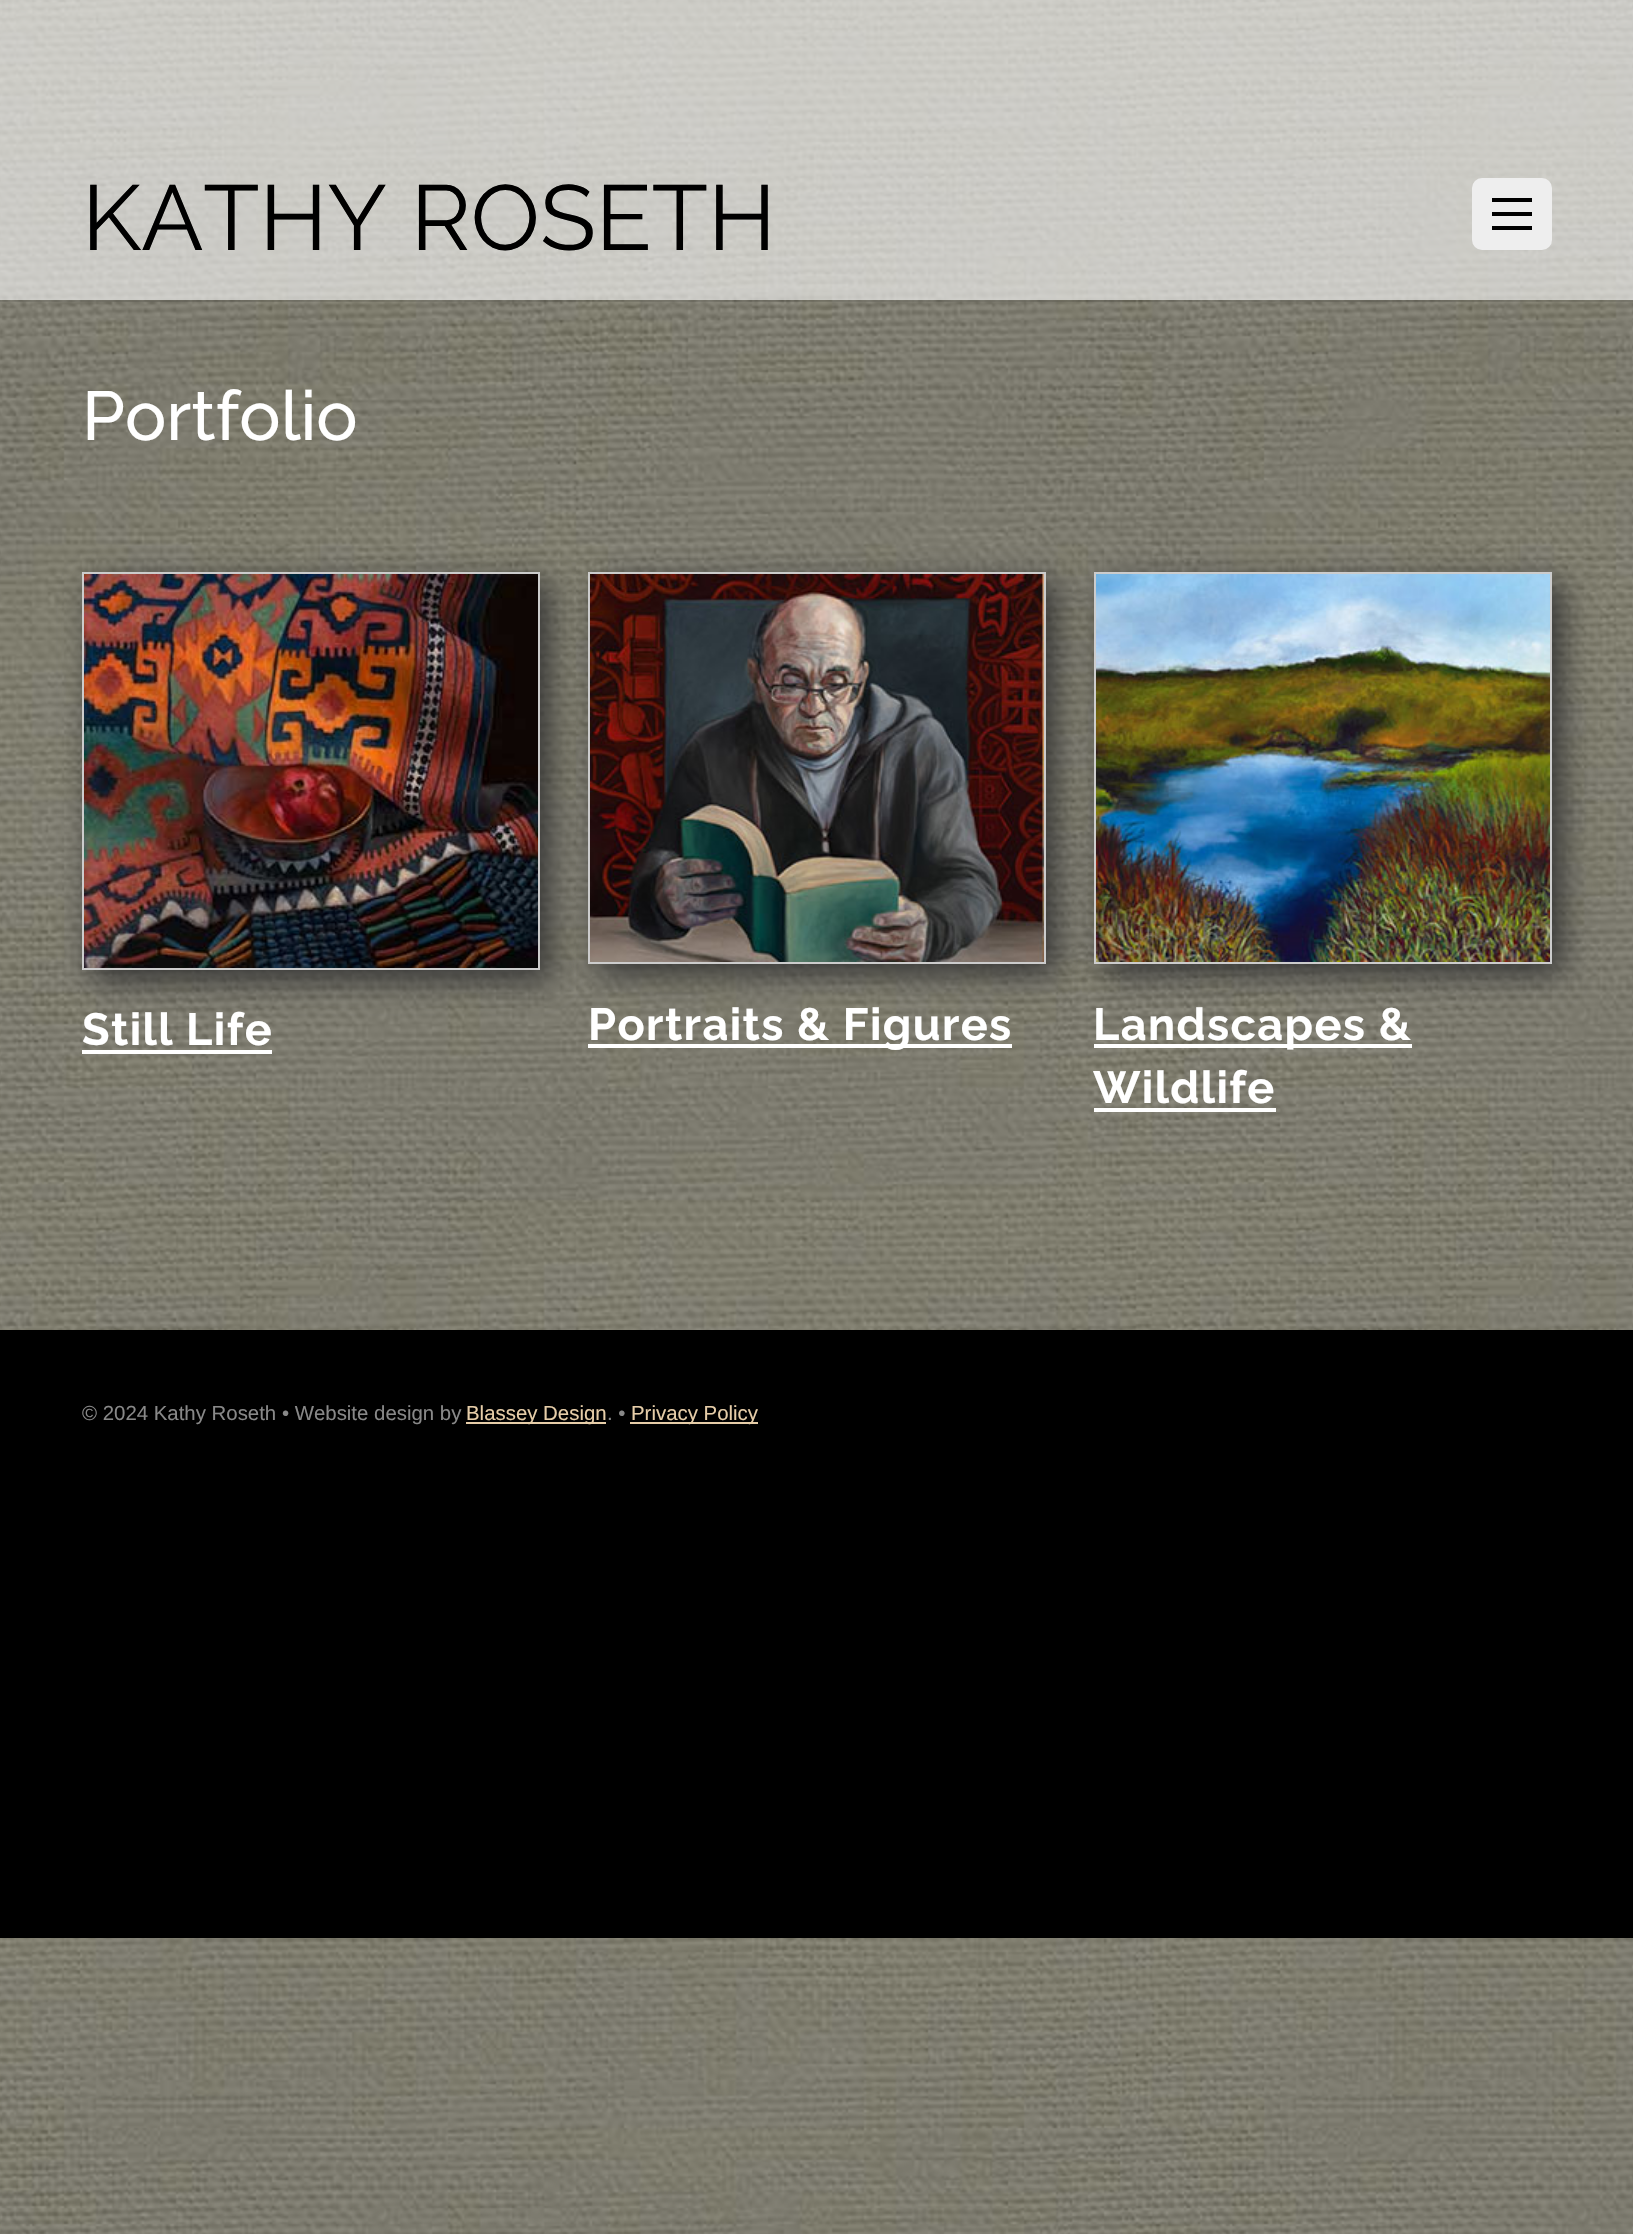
#include "include/core/SkBlurTypes.h"
#include "include/core/SkCanvas.h"
#include "include/core/SkData.h"
#include "include/core/SkFont.h"
#include "include/core/SkFontMgr.h"
#include "include/core/SkImage.h"
#include "include/core/SkMaskFilter.h"
#include "include/core/SkPaint.h"
#include "include/core/SkPathBuilder.h"
#include "include/core/SkTextBlob.h"
#include "include/effects/SkDashPathEffect.h"
#include "include/effects/SkGradientShader.h"
#include "include/utils/SkParsePath.h"

extern sk_sp<SkFontMgr> fontMgr;

void draw(SkCanvas* canvas) {
  SkPaint p;
  p.setAntiAlias(true);
  auto spacedText = [&](const char* s, float x, float y, const SkFont& font, const SkPaint& ink, float letter, float word) {
    std::vector<SkGlyphID> glyphs(font.countText(s, strlen(s), SkTextEncoding::kUTF8));
    std::vector<float> xs(glyphs.size());
    font.textToGlyphs(s, strlen(s), SkTextEncoding::kUTF8, glyphs);
    font.getXPos(glyphs, xs, x);
    float extra = 0;
    for (size_t i = 0; i < glyphs.size(); i++) {
      xs[i] += extra;
      extra += letter + word * (glyphs[i] == font.unicharToGlyph(' '));
    }
    canvas->drawTextBlob(SkTextBlob::MakeFromPosHGlyphs(glyphs, xs, y, font), 0, 0, ink);
  };
  canvas->clear(SK_ColorWHITE);
  canvas->drawImageRect(SkImages::DeferredFromEncodedData(SkData::MakeFromFileName("images/1.png")), SkRect::MakeLTRB(0, 0, 1633, 2234), SkSamplingOptions());
  p.setStyle(SkPaint::kStroke_Style);
  p.setStrokeWidth(2);
  p.setColor(SkColorSetARGB(26, 0, 0, 0));
  canvas->drawRect(SkRect::MakeLTRB(-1, -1, 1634, 301), p);
  p.setStyle(SkPaint::kFill_Style);
  p.setColor(SkColorSetARGB(153, 255, 255, 255));
  canvas->drawRect(SkRect::MakeLTRB(0, 0, 1633, 300), p);
  p.setColor(SkColorSetRGB(238, 238, 238));
  canvas->drawRoundRect(SkRect::MakeLTRB(1472, 178, 1552, 250), 10, 10, p);
  p.setColor(SK_ColorBLACK);
  canvas->drawRect(SkRect::MakeLTRB(1492, 226, 1532, 230), p);
  canvas->drawRect(SkRect::MakeLTRB(1492, 198, 1532, 202), p);
  canvas->drawRect(SkRect::MakeLTRB(1492, 212, 1532, 216), p);
  p.setColor(SkColorSetRGB(51, 51, 51));
  p.setMaskFilter(SkMaskFilter::MakeBlur(kNormal_SkBlurStyle, 15));
  canvas->drawRect(SkRect::MakeLTRB(92, 582, 550, 980), p);
  p.setMaskFilter(nullptr);
  p.setStyle(SkPaint::kStroke_Style);
  p.setColor(SkColorSetRGB(204, 204, 204));
  canvas->drawRect(SkRect::MakeLTRB(83, 573, 539, 969), p);
  canvas->drawImageRect(SkImages::DeferredFromEncodedData(SkData::MakeFromFileName("images/2.png")), SkRect::MakeLTRB(84, 574, 538, 968), SkSamplingOptions());
  p.setStyle(SkPaint::kFill_Style);
  p.setColor(SK_ColorWHITE);
  canvas->drawRect(SkRect::MakeLTRB(82, 1050, 272, 1054), p);
  p.setColor(SkColorSetRGB(51, 51, 51));
  p.setMaskFilter(SkMaskFilter::MakeBlur(kNormal_SkBlurStyle, 15));
  canvas->drawRect(SkRect::MakeLTRB(598, 582, 1056, 974), p);
  p.setMaskFilter(nullptr);
  p.setStyle(SkPaint::kStroke_Style);
  p.setColor(SkColorSetRGB(204, 204, 204));
  canvas->drawRect(SkRect::MakeLTRB(589, 573, 1045, 963), p);
  canvas->drawImageRect(SkImages::DeferredFromEncodedData(SkData::MakeFromFileName("images/3.png")), SkRect::MakeLTRB(590, 574, 1044, 962), SkSamplingOptions());
  p.setStyle(SkPaint::kFill_Style);
  p.setColor(SK_ColorWHITE);
  canvas->drawRect(SkRect::MakeLTRB(588, 1044, 1012, 1048), p);
  p.setColor(SkColorSetRGB(51, 51, 51));
  p.setMaskFilter(SkMaskFilter::MakeBlur(kNormal_SkBlurStyle, 15));
  canvas->drawRect(SkRect::MakeLTRB(1104, 582, 1562, 974), p);
  p.setMaskFilter(nullptr);
  p.setStyle(SkPaint::kStroke_Style);
  p.setColor(SkColorSetRGB(204, 204, 204));
  canvas->drawRect(SkRect::MakeLTRB(1095, 573, 1551, 963), p);
  canvas->drawImageRect(SkImages::DeferredFromEncodedData(SkData::MakeFromFileName("images/4.png")), SkRect::MakeLTRB(1096, 574, 1550, 962), SkSamplingOptions());
  p.setStyle(SkPaint::kFill_Style);
  p.setColor(SK_ColorWHITE);
  canvas->drawRect(SkRect::MakeLTRB(1094, 1044, 1412, 1048), p);
  canvas->drawRect(SkRect::MakeLTRB(1094, 1108, 1276, 1112), p);
  p.setColor(SK_ColorBLACK);
  canvas->drawRect(SkRect::MakeLTRB(0, 1330, 1633, 1938), p);
  p.setColor(SkColorSetRGB(230, 205, 168));
  canvas->drawRect(SkRect::MakeLTRB(466, 1422, 606, 1424), p);
  canvas->drawRect(SkRect::MakeLTRB(630, 1422, 758, 1424), p);
  SkFont font1(fontMgr->matchFamilyStyle("Raleway", SkFontStyle::Normal()), 92);
  font1.setSubpixel(true);
  p.setColor(SK_ColorBLACK);
  canvas->drawString("KATHY ROSETH", 82, 250, font1, p);
  SkFont font2(fontMgr->matchFamilyStyle("Raleway", SkFontStyle(500, SkFontStyle::kNormal_Width, SkFontStyle::kUpright_Slant)), 69);
  font2.setSubpixel(true);
  p.setColor(SK_ColorWHITE);
  canvas->drawString("Portfolio", 82, 440, font2, p);
  SkFont font3(fontMgr->matchFamilyStyle("Raleway", SkFontStyle::Bold()), 45);
  font3.setSubpixel(true);
  spacedText("Still Life", 82, 1045, font3, p, 1.4f, 0);
  spacedText("Portraits & Figures", 588, 1040, font3, p, 1.4f, 0);
  spacedText("Landscapes &", 1093, 1040, font3, p, 1.4f, 0);
  spacedText("Wildlife", 1093, 1103, font3, p, 1.4f, 0);
  SkFont font4(fontMgr->matchFamilyStyle("Liberation Sans", SkFontStyle::Normal()), 20.4f);
  font4.setSubpixel(true);
  p.setColor(SkColorSetRGB(136, 136, 136));
  canvas->drawString("© 2024 Kathy Roseth • Website design by", 82, 1420, font4, p);
  p.setColor(SkColorSetRGB(230, 205, 168));
  canvas->drawString("Blassey Design", 466, 1420, font4, p);
  p.setColor(SkColorSetRGB(136, 136, 136));
  canvas->drawString(". •", 607, 1420, font4, p);
  p.setColor(SkColorSetRGB(230, 205, 168));
  canvas->drawString("Privacy Policy", 631, 1420, font4, p);
}
